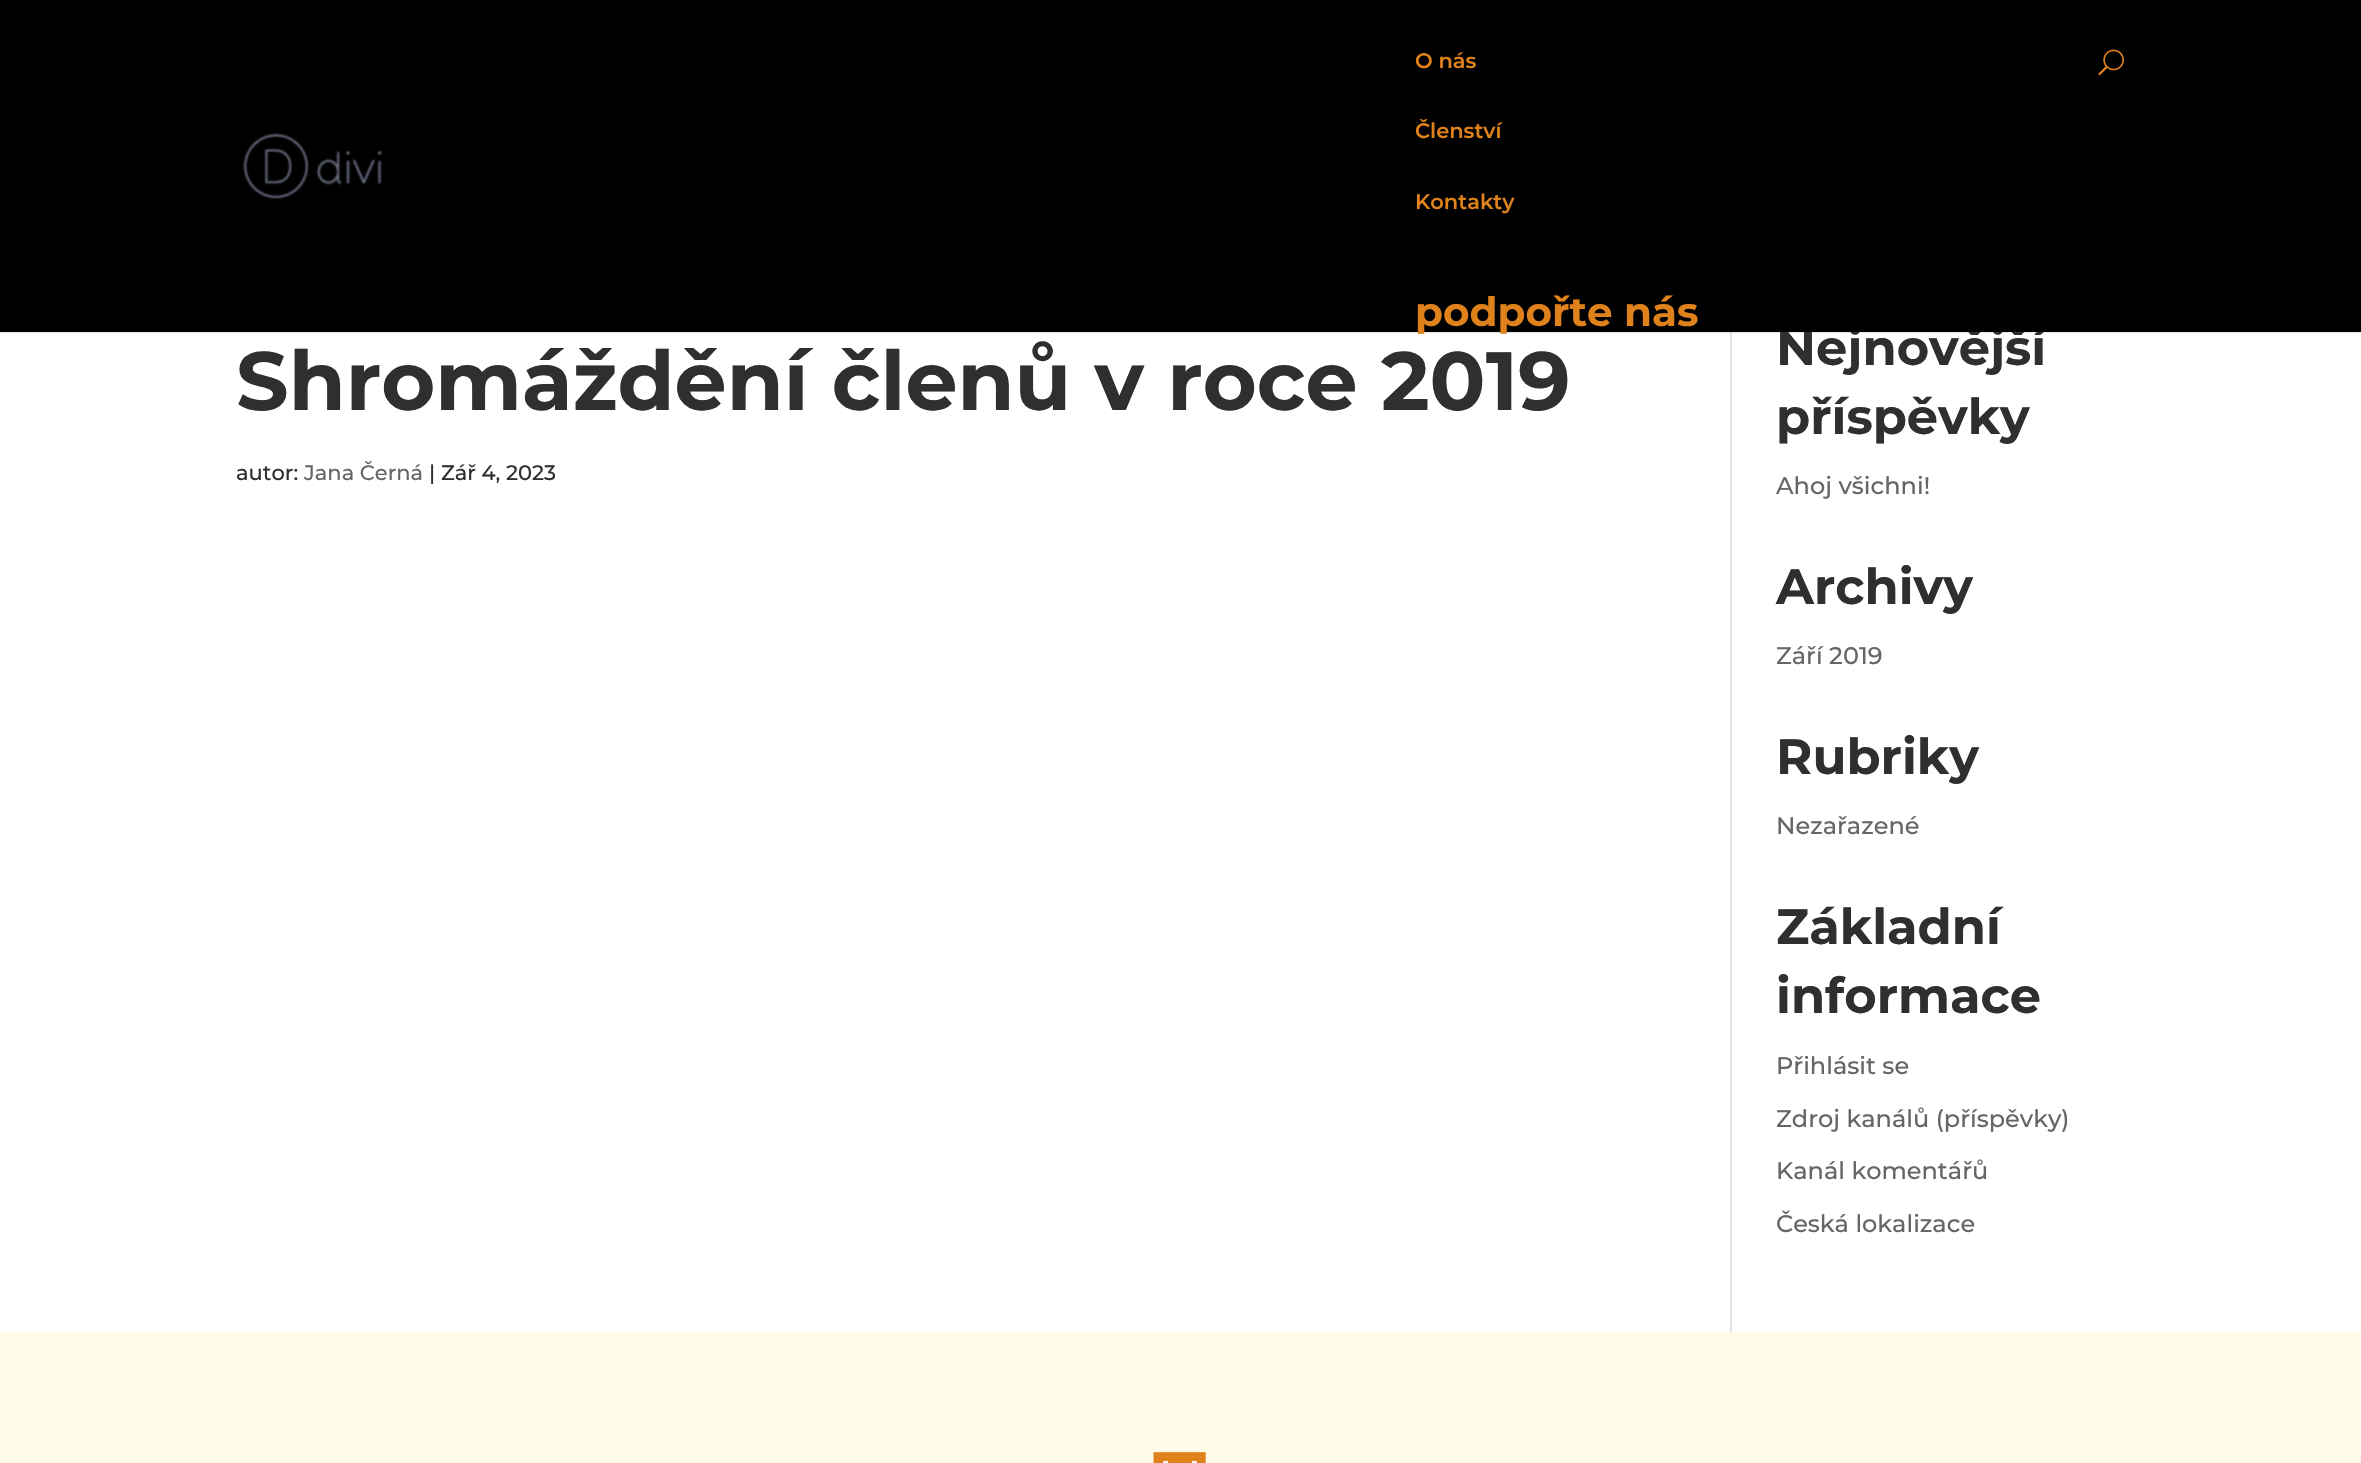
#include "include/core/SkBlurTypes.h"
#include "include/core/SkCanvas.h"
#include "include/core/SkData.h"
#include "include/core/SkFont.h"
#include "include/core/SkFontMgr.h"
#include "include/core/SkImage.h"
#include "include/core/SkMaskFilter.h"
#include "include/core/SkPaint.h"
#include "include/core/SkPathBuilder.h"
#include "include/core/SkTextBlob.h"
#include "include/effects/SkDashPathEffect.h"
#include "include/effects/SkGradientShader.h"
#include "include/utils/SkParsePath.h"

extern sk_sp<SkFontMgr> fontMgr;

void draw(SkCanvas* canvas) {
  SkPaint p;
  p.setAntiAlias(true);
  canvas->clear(SK_ColorWHITE);
  p.setColor(SkColorSetRGB(226, 226, 226));
  canvas->drawRect(SkRect::MakeLTRB(1730, 332, 1732, 1332), p);
  p.setColor(SkColorSetARGB(26, 0, 0, 0));
  canvas->drawRect(SkRect::MakeLTRB(0, 332, 2361, 333), p);
  p.setColor(SkColorSetRGB(255, 251, 230));
  canvas->drawRect(SkRect::MakeLTRB(0, 1332, 2361, 1463), p);
  canvas->drawImageRect(SkImages::DeferredFromEncodedData(SkData::MakeFromFileName("images/3.png")), SkRect::MakeLTRB(1153, 1452, 1206, 1463), SkSamplingOptions());
  SkFont font1(fontMgr->matchFamilyStyle("Montserrat", SkFontStyle::Bold()), 82.5f);
  font1.setSubpixel(true);
  p.setColor(SkColorSetRGB(49, 46, 46));
  canvas->drawString("Shromáždění členů v roce 2019", 236, 410, font1, p);
  SkFont font2(fontMgr->matchFamilyStyle("Montserrat", SkFontStyle(500, SkFontStyle::kNormal_Width, SkFontStyle::kUpright_Slant)), 21);
  font2.setSubpixel(true);
  canvas->drawString("autor:", 236, 480, font2, p);
  p.setColor(SkColorSetRGB(102, 102, 102));
  canvas->drawString("Jana Černá", 304, 480, font2, p);
  p.setColor(SkColorSetRGB(49, 46, 46));
  canvas->drawString("| Zář 4, 2023", 429, 480, font2, p);
  SkFont font3(fontMgr->matchFamilyStyle("Montserrat", SkFontStyle::Bold()), 49.5f);
  font3.setSubpixel(true);
  canvas->drawString("Nejnovější", 1776, 365, font3, p);
  p.setColor(SK_ColorBLACK);
  canvas->drawRect(SkRect::MakeLTRB(0, 0, 2361, 332), p);
  canvas->drawImageRect(SkImages::DeferredFromEncodedData(SkData::MakeFromFileName("images/2.png")), SkRect::MakeLTRB(2098, 49, 2124, 76), SkSamplingOptions());
  SkFont font4(fontMgr->matchFamilyStyle("Montserrat", SkFontStyle::Bold()), 40.5f);
  font4.setSubpixel(true);
  p.setColor(SkColorSetRGB(224, 130, 27));
  canvas->drawString("podpořte nás", 1415, 326, font4, p);
  SkFont font5(fontMgr->matchFamilyStyle("Montserrat", SkFontStyle(600, SkFontStyle::kNormal_Width, SkFontStyle::kUpright_Slant)), 21);
  font5.setSubpixel(true);
  canvas->drawString("Kontakty", 1415, 209, font5, p);
  canvas->drawString("Členství", 1415, 138, font5, p);
  canvas->drawString("O nás", 1415, 68, font5, p);
  canvas->drawImageRect(SkImages::DeferredFromEncodedData(SkData::MakeFromFileName("images/1.png")), SkRect::MakeLTRB(242, 133, 383, 199), SkSamplingOptions());
  p.setColor(SkColorSetRGB(49, 46, 46));
  canvas->drawString("příspěvky", 1776, 434, font3, p);
  SkFont font6(fontMgr->matchFamilyStyle("Montserrat", SkFontStyle(500, SkFontStyle::kNormal_Width, SkFontStyle::kUpright_Slant)), 24);
  font6.setSubpixel(true);
  p.setColor(SkColorSetRGB(102, 102, 102));
  canvas->drawString("Ahoj všichni!", 1776, 494, font6, p);
  p.setColor(SkColorSetRGB(49, 46, 46));
  canvas->drawString("Archivy", 1776, 604, font3, p);
  p.setColor(SkColorSetRGB(102, 102, 102));
  canvas->drawString("Září 2019", 1776, 664, font6, p);
  p.setColor(SkColorSetRGB(49, 46, 46));
  canvas->drawString("Rubriky", 1776, 774, font3, p);
  p.setColor(SkColorSetRGB(102, 102, 102));
  canvas->drawString("Nezařazené", 1776, 834, font6, p);
  p.setColor(SkColorSetRGB(49, 46, 46));
  canvas->drawString("Základní", 1776, 944, font3, p);
  canvas->drawString("informace", 1776, 1013, font3, p);
  p.setColor(SkColorSetRGB(102, 102, 102));
  canvas->drawString("Přihlásit se", 1776, 1074, font6, p);
  canvas->drawString("Zdroj kanálů (příspěvky)", 1776, 1127, font6, p);
  canvas->drawString("Kanál komentářů", 1776, 1179, font6, p);
  canvas->drawString("Česká lokalizace", 1776, 1232, font6, p);
}
